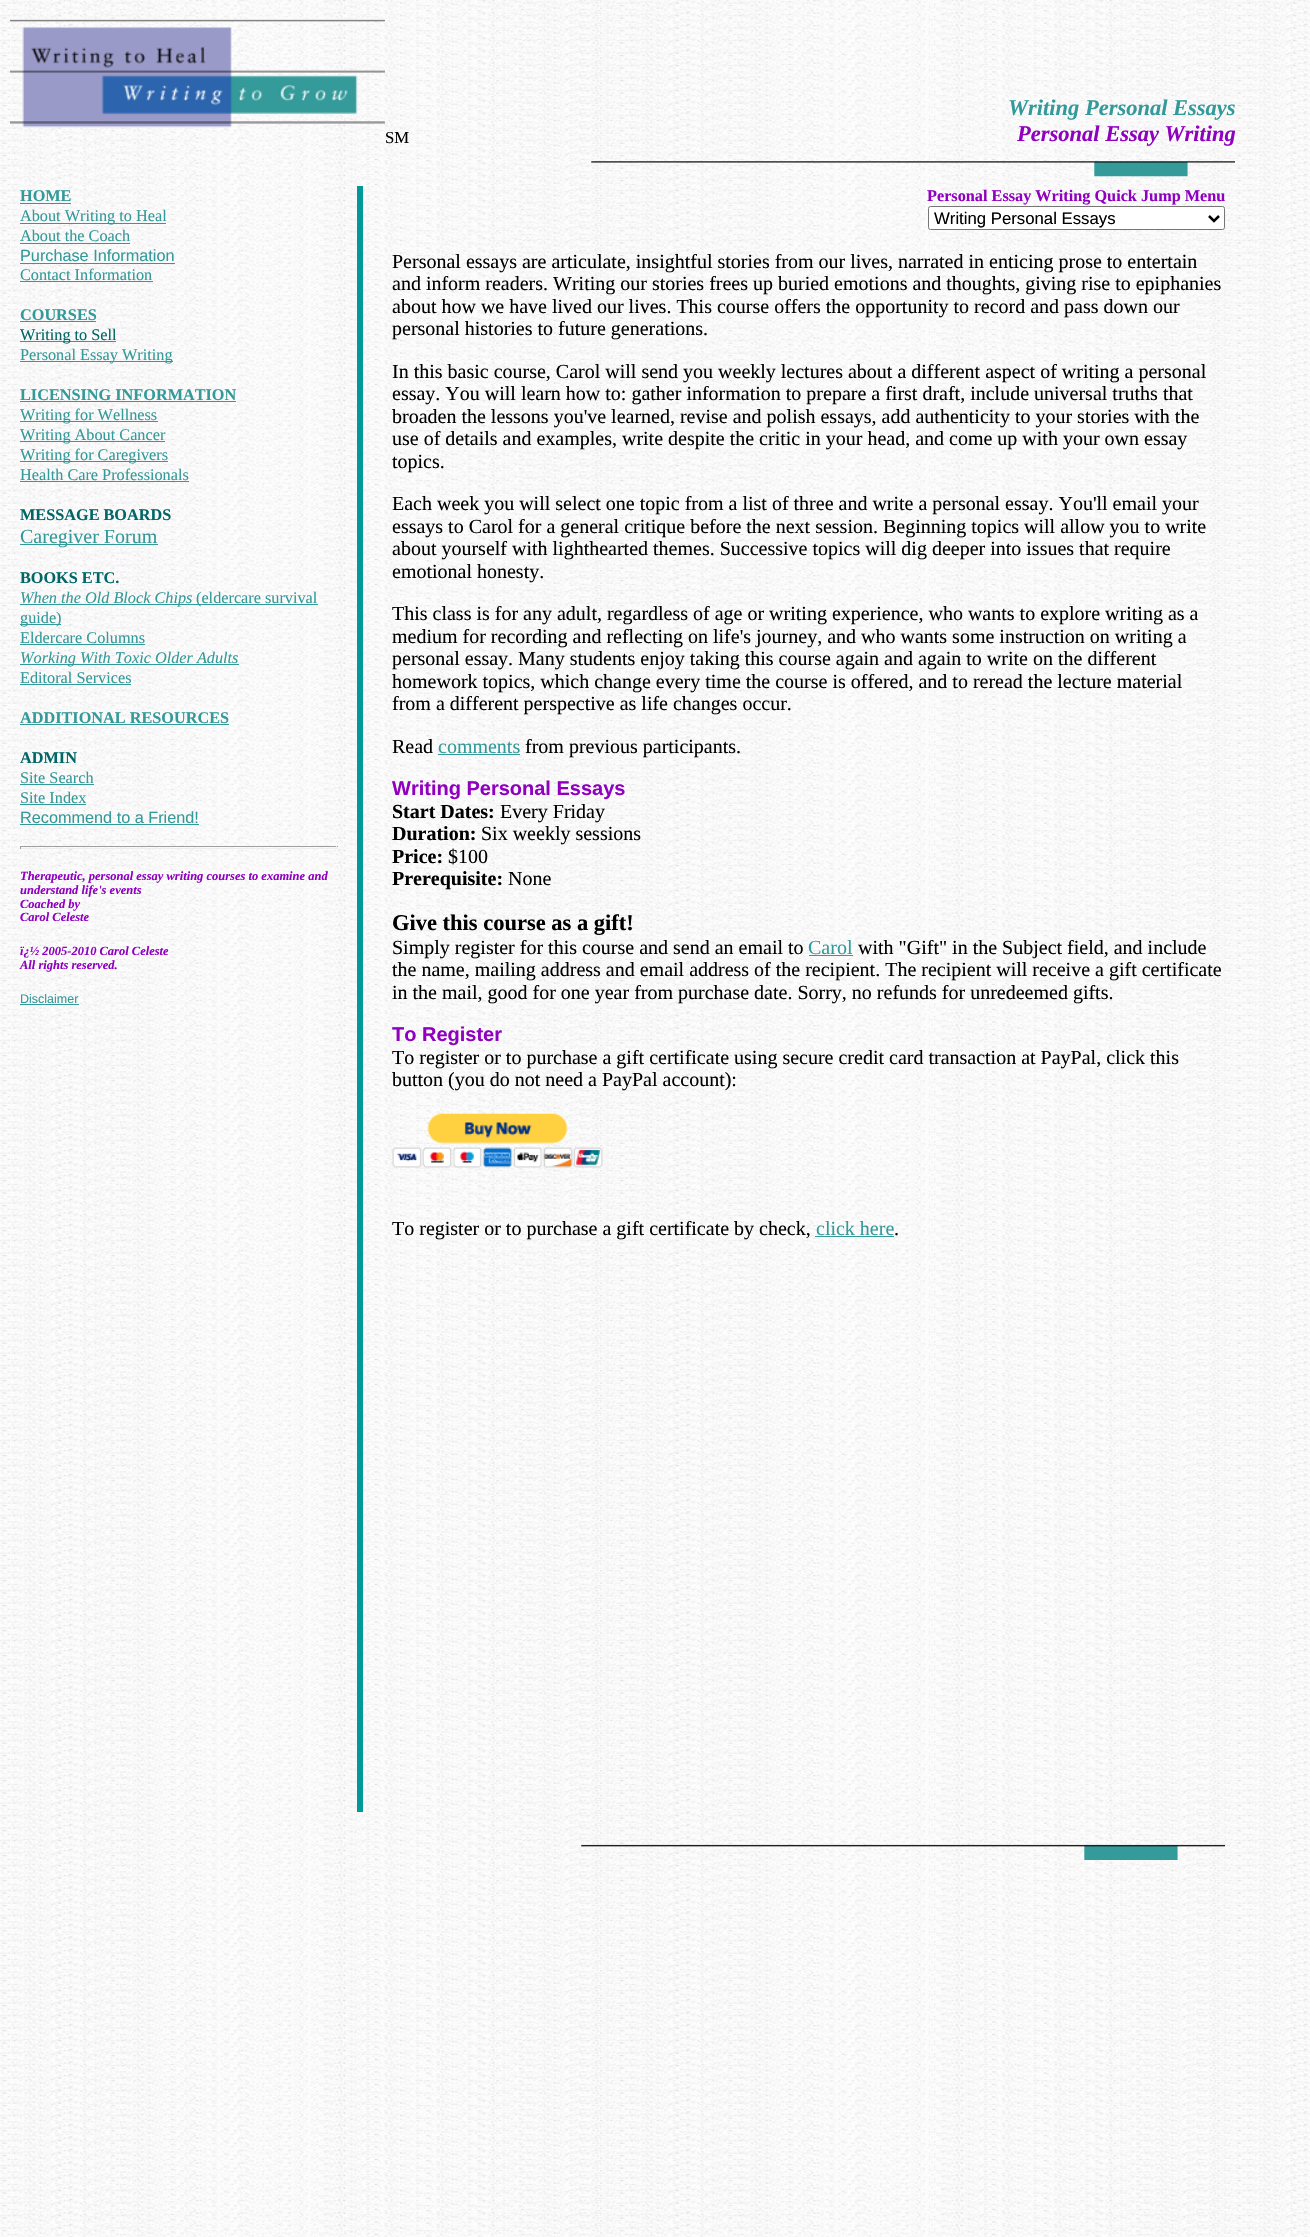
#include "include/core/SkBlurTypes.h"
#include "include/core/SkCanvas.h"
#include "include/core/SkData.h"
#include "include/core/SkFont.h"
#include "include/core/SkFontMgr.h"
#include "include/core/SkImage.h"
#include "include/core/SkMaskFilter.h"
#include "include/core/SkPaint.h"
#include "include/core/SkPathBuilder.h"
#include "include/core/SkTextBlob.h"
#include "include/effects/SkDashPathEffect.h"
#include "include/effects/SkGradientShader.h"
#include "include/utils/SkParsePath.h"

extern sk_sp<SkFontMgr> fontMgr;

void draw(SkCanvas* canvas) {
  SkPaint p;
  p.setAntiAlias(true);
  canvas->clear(SK_ColorWHITE);
  canvas->drawImageRect(SkImages::DeferredFromEncodedData(SkData::MakeFromFileName("images/1.png")), SkRect::MakeLTRB(0, 0, 1310, 2237), SkSamplingOptions());
  canvas->drawImageRect(SkImages::DeferredFromEncodedData(SkData::MakeFromFileName("images/2.png")), SkRect::MakeLTRB(10, 19, 385, 128), SkSamplingOptions());
  canvas->drawImageRect(SkImages::DeferredFromEncodedData(SkData::MakeFromFileName("images/3.png")), SkRect::MakeLTRB(591, 161, 1235, 177), SkSamplingOptions());
  p.setColor(SkColorSetRGB(51, 153, 153));
  canvas->drawRect(SkRect::MakeLTRB(20, 203, 71, 204), p);
  canvas->drawRect(SkRect::MakeLTRB(20, 223, 166, 224), p);
  canvas->drawRect(SkRect::MakeLTRB(20, 243, 130, 244), p);
  canvas->drawRect(SkRect::MakeLTRB(20, 263, 175, 264), p);
  canvas->drawRect(SkRect::MakeLTRB(20, 281, 153, 282), p);
  canvas->drawRect(SkRect::MakeLTRB(20, 321, 96, 322), p);
  canvas->drawRect(SkRect::MakeLTRB(20, 341, 116, 342), p);
  canvas->drawRect(SkRect::MakeLTRB(20, 361, 173, 362), p);
  canvas->drawRect(SkRect::MakeLTRB(20, 401, 236, 402), p);
  canvas->drawRect(SkRect::MakeLTRB(20, 421, 158, 422), p);
  canvas->drawRect(SkRect::MakeLTRB(20, 441, 165, 442), p);
  canvas->drawRect(SkRect::MakeLTRB(20, 461, 168, 462), p);
  canvas->drawRect(SkRect::MakeLTRB(20, 481, 189, 482), p);
  canvas->drawRect(SkRect::MakeLTRB(20, 544, 158, 545), p);
  canvas->drawRect(SkRect::MakeLTRB(20, 604, 318, 605), p);
  canvas->drawRect(SkRect::MakeLTRB(20, 624, 61, 625), p);
  canvas->drawRect(SkRect::MakeLTRB(20, 644, 145, 645), p);
  canvas->drawRect(SkRect::MakeLTRB(20, 664, 239, 665), p);
  canvas->drawRect(SkRect::MakeLTRB(20, 684, 131, 685), p);
  canvas->drawRect(SkRect::MakeLTRB(20, 724, 229, 725), p);
  canvas->drawRect(SkRect::MakeLTRB(20, 784, 94, 785), p);
  canvas->drawRect(SkRect::MakeLTRB(20, 804, 86, 805), p);
  canvas->drawRect(SkRect::MakeLTRB(20, 824, 199, 825), p);
  p.setColor(SkColorSetRGB(159, 159, 159));
  canvas->drawRect(SkRect::MakeLTRB(20, 846, 338, 847), p);
  p.setColor(SkColorSetRGB(238, 238, 238));
  canvas->drawRect(SkRect::MakeLTRB(336, 846, 337, 849), p);
  canvas->drawRect(SkRect::MakeLTRB(20, 848, 338, 849), p);
  p.setColor(SkColorSetRGB(159, 159, 159));
  canvas->drawRect(SkRect::MakeLTRB(20, 846, 21, 849), p);
  p.setColor(SkColorSetRGB(51, 153, 153));
  canvas->drawRect(SkRect::MakeLTRB(20, 1004, 79, 1005), p);
  p.setColor(SkColorSetRGB(0, 153, 153));
  canvas->drawRect(SkRect::MakeLTRB(357, 186, 363, 1812), p);
  p.setColor(SK_ColorWHITE);
  canvas->drawRoundRect(SkRect::MakeLTRB(928.5f, 206.5f, 1224.5f, 229.5f), 2, 2, p);
  p.setStyle(SkPaint::kStroke_Style);
  p.setStrokeWidth(1);
  p.setColor(SkColorSetRGB(118, 118, 118));
  canvas->drawRoundRect(SkRect::MakeLTRB(928.5f, 206.5f, 1224.5f, 229.5f), 2, 2, p);
  p.setStrokeWidth(2.5f);
  p.setColor(SK_ColorBLACK);
  canvas->drawPath(SkPathBuilder().moveTo(1209, 216).lineTo(1214, 221).lineTo(1219, 216).detach(), p);
  p.setStyle(SkPaint::kFill_Style);
  p.setColor(SkColorSetRGB(51, 153, 153));
  canvas->drawRect(SkRect::MakeLTRB(438, 754, 520, 755), p);
  canvas->drawRect(SkRect::MakeLTRB(809, 955, 853, 956), p);
  canvas->drawImageRect(SkImages::DeferredFromEncodedData(SkData::MakeFromFileName("images/4.png")), SkRect::MakeLTRB(392, 1113, 603, 1168), SkSamplingOptions());
  canvas->drawRect(SkRect::MakeLTRB(815, 1236, 894, 1237), p);
  canvas->drawImageRect(SkImages::DeferredFromEncodedData(SkData::MakeFromFileName("images/5.png")), SkRect::MakeLTRB(581, 1844, 1225, 1860), SkSamplingOptions());
  SkFont font1(fontMgr->matchFamilyStyle("Liberation Serif", SkFontStyle::Normal()), 16.75f);
  font1.setSubpixel(true);
  p.setColor(SK_ColorBLACK);
  canvas->drawString("SM", 385, 143, font1, p);
  SkFont font2(fontMgr->matchFamilyStyle("Liberation Serif", SkFontStyle::BoldItalic()), 22.5f);
  font2.setSubpixel(true);
  p.setColor(SkColorSetRGB(51, 153, 153));
  canvas->drawString("Writing Personal Essays", 1008, 115, font2, p);
  p.setColor(SkColorSetRGB(143, 0, 191));
  canvas->drawString("Personal Essay Writing", 1017, 141, font2, p);
  SkFont font3(fontMgr->matchFamilyStyle("Liberation Serif", SkFontStyle::Bold()), 16.25f);
  font3.setSubpixel(true);
  p.setColor(SkColorSetRGB(51, 153, 153));
  canvas->drawString("HOME", 20, 201, font3, p);
  SkFont font4(fontMgr->matchFamilyStyle("Liberation Serif", SkFontStyle::Normal()), 16.25f);
  font4.setSubpixel(true);
  canvas->drawString("About Writing to Heal", 20, 221, font4, p);
  canvas->drawString("About the Coach", 20, 241, font4, p);
  SkFont font5(fontMgr->matchFamilyStyle("Liberation Sans", SkFontStyle::Normal()), 16.25f);
  font5.setSubpixel(true);
  canvas->drawString("Purchase Information", 20, 261, font5, p);
  canvas->drawString("Contact Information", 20, 280, font4, p);
  canvas->drawString("COURSES", 20, 320, font3, p);
  p.setColor(SkColorSetRGB(0, 102, 102));
  canvas->drawString("Writing to Sell", 20, 340, font4, p);
  p.setColor(SkColorSetRGB(51, 153, 153));
  canvas->drawString("Personal Essay Writing", 20, 360, font4, p);
  canvas->drawString("LICENSING INFORMATION", 20, 400, font3, p);
  canvas->drawString("Writing for Wellness", 20, 420, font4, p);
  canvas->drawString("Writing About Cancer", 20, 440, font4, p);
  canvas->drawString("Writing for Caregivers", 20, 460, font4, p);
  canvas->drawString("Health Care Professionals", 20, 480, font4, p);
  p.setColor(SkColorSetRGB(0, 102, 102));
  canvas->drawString("MESSAGE BOARDS", 20, 520, font3, p);
  SkFont font6(fontMgr->matchFamilyStyle("Liberation Serif", SkFontStyle::Normal()), 20);
  font6.setSubpixel(true);
  p.setColor(SkColorSetRGB(51, 153, 153));
  canvas->drawString("Caregiver Forum", 20, 543, font6, p);
  p.setColor(SkColorSetRGB(0, 102, 102));
  canvas->drawString("BOOKS ETC.", 20, 583, font3, p);
  SkFont font7(fontMgr->matchFamilyStyle("Liberation Serif", SkFontStyle::Italic()), 16.25f);
  font7.setSubpixel(true);
  p.setColor(SkColorSetRGB(51, 153, 153));
  canvas->drawString("When the Old Block Chips", 20, 603, font7, p);
  canvas->drawString("(eldercare survival", 196, 603, font4, p);
  canvas->drawString("guide)", 20, 623, font4, p);
  canvas->drawString("Eldercare Columns", 20, 643, font4, p);
  canvas->drawString("Working With Toxic Older Adults", 20, 663, font7, p);
  canvas->drawString("Editoral Services", 20, 683, font4, p);
  canvas->drawString("ADDITIONAL RESOURCES", 20, 723, font3, p);
  p.setColor(SkColorSetRGB(0, 102, 102));
  canvas->drawString("ADMIN", 20, 763, font3, p);
  p.setColor(SkColorSetRGB(51, 153, 153));
  canvas->drawString("Site Search", 20, 783, font4, p);
  canvas->drawString("Site Index", 20, 803, font4, p);
  canvas->drawString("Recommend to a Friend!", 20, 823, font5, p);
  SkFont font8(fontMgr->matchFamilyStyle("Liberation Serif", SkFontStyle::BoldItalic()), 12.5f);
  font8.setSubpixel(true);
  p.setColor(SkColorSetRGB(143, 0, 191));
  canvas->drawString("Therapeutic, personal essay writing courses to examine and", 20, 880, font8, p);
  canvas->drawString("understand life's events", 20, 894, font8, p);
  canvas->drawString("Coached by", 20, 908, font8, p);
  canvas->drawString("Carol Celeste", 20, 921, font8, p);
  canvas->drawString("ï¿½ 2005-2010 Carol Celeste", 20, 955, font8, p);
  canvas->drawString("All rights reserved.", 20, 969, font8, p);
  SkFont font9(fontMgr->matchFamilyStyle("Liberation Sans", SkFontStyle::Normal()), 12.5f);
  font9.setSubpixel(true);
  p.setColor(SkColorSetRGB(51, 153, 153));
  canvas->drawString("Disclaimer", 20, 1003, font9, p);
  p.setColor(SkColorSetRGB(143, 0, 191));
  canvas->drawString("Personal Essay Writing Quick Jump Menu", 927, 201, font3, p);
  SkFont font10(fontMgr->matchFamilyStyle("Liberation Sans", SkFontStyle::Normal()), 16.75f);
  font10.setSubpixel(true);
  p.setColor(SK_ColorBLACK);
  canvas->drawString("Writing Personal Essays", 934, 224, font10, p);
  canvas->drawString("Personal essays are articulate, insightful stories from our lives, narrated in enticing prose to entertain", 392, 268, font6, p);
  canvas->drawString("and inform readers. Writing our stories frees up buried emotions and thoughts, giving rise to epiphanies", 392, 290, font6, p);
  canvas->drawString("about how we have lived our lives. This course offers the opportunity to record and pass down our", 392, 313, font6, p);
  canvas->drawString("personal histories to future generations.", 392, 335, font6, p);
  canvas->drawString("In this basic course, Carol will send you weekly lectures about a different aspect of writing a personal", 392, 378, font6, p);
  canvas->drawString("essay. You will learn how to: gather information to prepare a first draft, include universal truths that", 392, 400, font6, p);
  canvas->drawString("broaden the lessons you've learned, revise and polish essays, add authenticity to your stories with the", 392, 423, font6, p);
  canvas->drawString("use of details and examples, write despite the critic in your head, and come up with your own essay", 392, 445, font6, p);
  canvas->drawString("topics.", 392, 468, font6, p);
  canvas->drawString("Each week you will select one topic from a list of three and write a personal essay. You'll email your", 392, 510, font6, p);
  canvas->drawString("essays to Carol for a general critique before the next session. Beginning topics will allow you to write", 392, 533, font6, p);
  canvas->drawString("about yourself with lighthearted themes. Successive topics will dig deeper into issues that require", 392, 555, font6, p);
  canvas->drawString("emotional honesty.", 392, 578, font6, p);
  canvas->drawString("This class is for any adult, regardless of age or writing experience, who wants to explore writing as a", 392, 620, font6, p);
  canvas->drawString("medium for recording and reflecting on life's journey, and who wants some instruction on writing a", 392, 643, font6, p);
  canvas->drawString("personal essay. Many students enjoy taking this course again and again to write on the different", 392, 665, font6, p);
  canvas->drawString("homework topics, which change every time the course is offered, and to reread the lecture material", 392, 688, font6, p);
  canvas->drawString("from a different perspective as life changes occur.", 392, 710, font6, p);
  canvas->drawString("Read", 392, 753, font6, p);
  p.setColor(SkColorSetRGB(51, 153, 153));
  canvas->drawString("comments", 438, 753, font6, p);
  p.setColor(SK_ColorBLACK);
  canvas->drawString("from previous participants.", 525, 753, font6, p);
  SkFont font11(fontMgr->matchFamilyStyle("Liberation Sans", SkFontStyle::Bold()), 20);
  font11.setSubpixel(true);
  p.setColor(SkColorSetRGB(143, 0, 191));
  canvas->drawString("Writing Personal Essays", 392, 795, font11, p);
  SkFont font12(fontMgr->matchFamilyStyle("Liberation Serif", SkFontStyle::Bold()), 20);
  font12.setSubpixel(true);
  p.setColor(SK_ColorBLACK);
  canvas->drawString("Start Dates:", 392, 818, font12, p);
  canvas->drawString("Every Friday", 500, 818, font6, p);
  canvas->drawString("Duration:", 392, 840, font12, p);
  canvas->drawString("Six weekly sessions", 481, 840, font6, p);
  canvas->drawString("Price:", 392, 863, font12, p);
  canvas->drawString("$100", 448, 863, font6, p);
  canvas->drawString("Prerequisite:", 392, 885, font12, p);
  canvas->drawString("None", 508, 885, font6, p);
  SkFont font13(fontMgr->matchFamilyStyle("Liberation Serif", SkFontStyle::Bold()), 22.5f);
  font13.setSubpixel(true);
  canvas->drawString("Give this course as a gift!", 392, 930, font13, p);
  canvas->drawString("Simply register for this course and send an email to", 392, 954, font6, p);
  p.setColor(SkColorSetRGB(51, 153, 153));
  canvas->drawString("Carol", 808, 954, font6, p);
  p.setColor(SK_ColorBLACK);
  canvas->drawString("with \"Gift\" in the Subject field, and include", 858, 954, font6, p);
  canvas->drawString("the name, mailing address and email address of the recipient. The recipient will receive a gift certificate", 392, 976, font6, p);
  canvas->drawString("in the mail, good for one year from purchase date. Sorry, no refunds for unredeemed gifts.", 392, 999, font6, p);
  p.setColor(SkColorSetRGB(143, 0, 191));
  canvas->drawString("To Register", 392, 1041, font11, p);
  p.setColor(SK_ColorBLACK);
  canvas->drawString("To register or to purchase a gift certificate using secure credit card transaction at PayPal, click this", 392, 1064, font6, p);
  canvas->drawString("button (you do not need a PayPal account):", 392, 1086, font6, p);
  canvas->drawString("To register or to purchase a gift certificate by check,", 392, 1235, font6, p);
  p.setColor(SkColorSetRGB(51, 153, 153));
  canvas->drawString("click here", 816, 1235, font6, p);
  p.setColor(SK_ColorBLACK);
  canvas->drawString(".", 894, 1235, font6, p);
}
